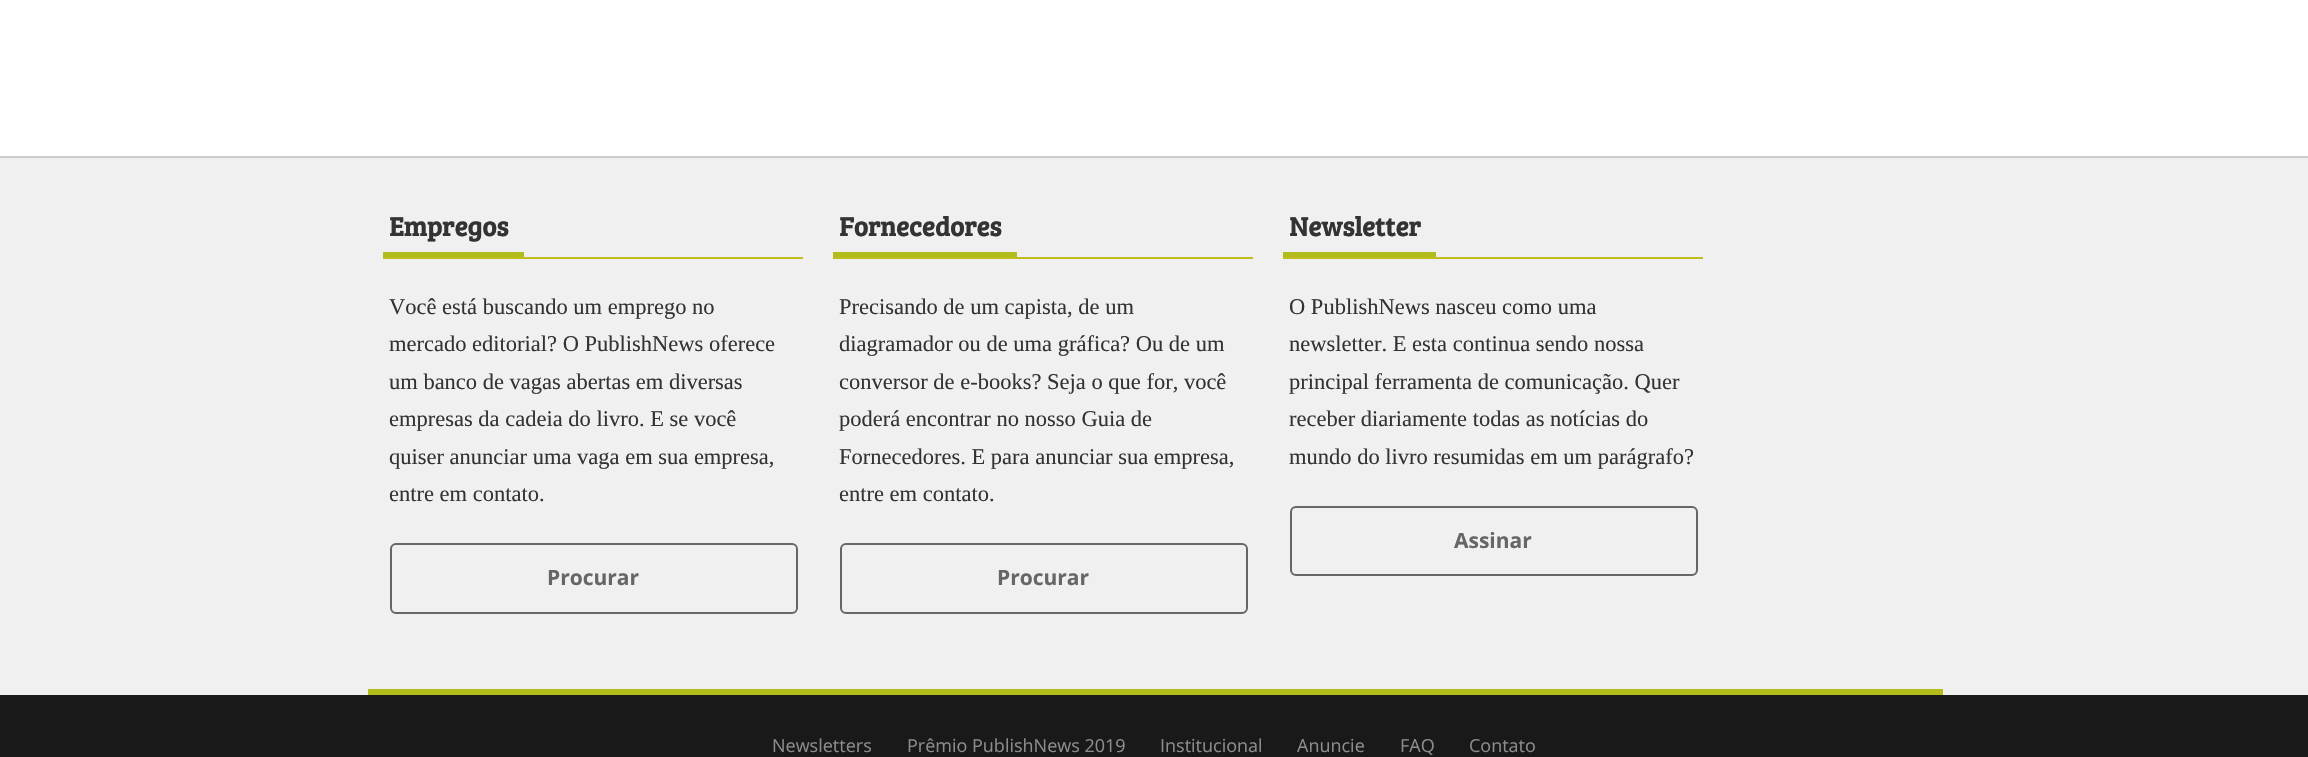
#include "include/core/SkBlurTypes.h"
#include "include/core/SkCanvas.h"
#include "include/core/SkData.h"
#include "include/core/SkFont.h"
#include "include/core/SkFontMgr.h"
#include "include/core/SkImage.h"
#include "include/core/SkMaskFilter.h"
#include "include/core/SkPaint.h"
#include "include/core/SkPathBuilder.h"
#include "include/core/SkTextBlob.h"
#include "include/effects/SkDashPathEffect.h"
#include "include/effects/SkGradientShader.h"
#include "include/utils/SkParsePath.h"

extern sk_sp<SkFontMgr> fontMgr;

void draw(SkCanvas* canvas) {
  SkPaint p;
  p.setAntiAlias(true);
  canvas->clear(SK_ColorWHITE);
  p.setColor(SkColorSetRGB(240, 240, 240));
  canvas->drawRect(SkRect::MakeLTRB(0, 158, 2308, 695), p);
  p.setColor(SkColorSetRGB(204, 204, 204));
  canvas->drawRect(SkRect::MakeLTRB(0, 156, 2308, 158), p);
  p.setColor(SkColorSetRGB(191, 188, 28));
  canvas->drawRect(SkRect::MakeLTRB(383, 257, 803, 259), p);
  p.setColor(SkColorSetRGB(178, 188, 28));
  canvas->drawRect(SkRect::MakeLTRB(383, 252, 524, 257), p);
  p.setStyle(SkPaint::kStroke_Style);
  p.setStrokeWidth(2);
  p.setColor(SkColorSetRGB(102, 102, 102));
  canvas->drawRoundRect(SkRect::MakeLTRB(391, 544, 797, 613), 5, 5, p);
  p.setStyle(SkPaint::kFill_Style);
  p.setColor(SkColorSetRGB(191, 188, 28));
  canvas->drawRect(SkRect::MakeLTRB(833, 257, 1253, 259), p);
  p.setColor(SkColorSetRGB(178, 188, 28));
  canvas->drawRect(SkRect::MakeLTRB(833, 252, 1017, 257), p);
  p.setStyle(SkPaint::kStroke_Style);
  p.setColor(SkColorSetRGB(102, 102, 102));
  canvas->drawRoundRect(SkRect::MakeLTRB(841, 544, 1247, 613), 5, 5, p);
  p.setStyle(SkPaint::kFill_Style);
  p.setColor(SkColorSetRGB(191, 188, 28));
  canvas->drawRect(SkRect::MakeLTRB(1283, 257, 1703, 259), p);
  p.setColor(SkColorSetRGB(178, 188, 28));
  canvas->drawRect(SkRect::MakeLTRB(1283, 252, 1436, 257), p);
  p.setStyle(SkPaint::kStroke_Style);
  p.setColor(SkColorSetRGB(102, 102, 102));
  canvas->drawRoundRect(SkRect::MakeLTRB(1291, 507, 1697, 575), 5, 5, p);
  p.setStyle(SkPaint::kFill_Style);
  p.setColor(SkColorSetRGB(178, 188, 28));
  canvas->drawRect(SkRect::MakeLTRB(368, 689, 1943, 695), p);
  p.setColor(SkColorSetRGB(25, 25, 25));
  canvas->drawRect(SkRect::MakeLTRB(0, 695, 2308, 757), p);
  SkFont font1(fontMgr->matchFamilyStyle("Bree Serif", SkFontStyle::Bold()), 27);
  font1.setSubpixel(true);
  p.setColor(SkColorSetRGB(51, 51, 51));
  canvas->drawString("Empregos", 389, 236, font1, p);
  SkFont font2(fontMgr->matchFamilyStyle("Liberation Serif", SkFontStyle::Normal()), 22.5f);
  font2.setSubpixel(true);
  canvas->drawString("Você está buscando um emprego no", 389, 314, font2, p);
  canvas->drawString("mercado editorial? O PublishNews oferece", 389, 351, font2, p);
  canvas->drawString("um banco de vagas abertas em diversas", 389, 389, font2, p);
  canvas->drawString("empresas da cadeia do livro. E se você", 389, 426, font2, p);
  canvas->drawString("quiser anunciar uma vaga em sua empresa,", 389, 464, font2, p);
  canvas->drawString("entre em contato.", 389, 501, font2, p);
  SkFont font3(fontMgr->matchFamilyStyle("Open Sans", SkFontStyle::Bold()), 21);
  font3.setSubpixel(true);
  p.setColor(SkColorSetRGB(102, 102, 102));
  canvas->drawString("Procurar", 547, 585, font3, p);
  p.setColor(SkColorSetRGB(51, 51, 51));
  canvas->drawString("Fornecedores", 839, 236, font1, p);
  canvas->drawString("Precisando de um capista, de um", 839, 314, font2, p);
  canvas->drawString("diagramador ou de uma gráfica? Ou de um", 839, 351, font2, p);
  canvas->drawString("conversor de e-books? Seja o que for, você", 839, 389, font2, p);
  canvas->drawString("poderá encontrar no nosso Guia de", 839, 426, font2, p);
  canvas->drawString("Fornecedores. E para anunciar sua empresa,", 839, 464, font2, p);
  canvas->drawString("entre em contato.", 839, 501, font2, p);
  p.setColor(SkColorSetRGB(102, 102, 102));
  canvas->drawString("Procurar", 997, 585, font3, p);
  p.setColor(SkColorSetRGB(51, 51, 51));
  canvas->drawString("Newsletter", 1289, 236, font1, p);
  canvas->drawString("O PublishNews nasceu como uma", 1289, 314, font2, p);
  canvas->drawString("newsletter. E esta continua sendo nossa", 1289, 351, font2, p);
  canvas->drawString("principal ferramenta de comunicação. Quer", 1289, 389, font2, p);
  canvas->drawString("receber diariamente todas as notícias do", 1289, 426, font2, p);
  canvas->drawString("mundo do livro resumidas em um parágrafo?", 1289, 464, font2, p);
  p.setColor(SkColorSetRGB(102, 102, 102));
  canvas->drawString("Assinar", 1454, 548, font3, p);
  SkFont font4(fontMgr->matchFamilyStyle("Open Sans", SkFontStyle::Normal()), 18);
  font4.setSubpixel(true);
  p.setColor(SkColorSetRGB(140, 140, 140));
  canvas->drawString("Newsletters", 772, 752, font4, p);
  canvas->drawString("Prêmio PublishNews 2019", 907, 752, font4, p);
  canvas->drawString("Institucional", 1160, 752, font4, p);
  canvas->drawString("Anuncie", 1297, 752, font4, p);
  canvas->drawString("FAQ", 1400, 752, font4, p);
  canvas->drawString("Contato", 1469, 752, font4, p);
}
